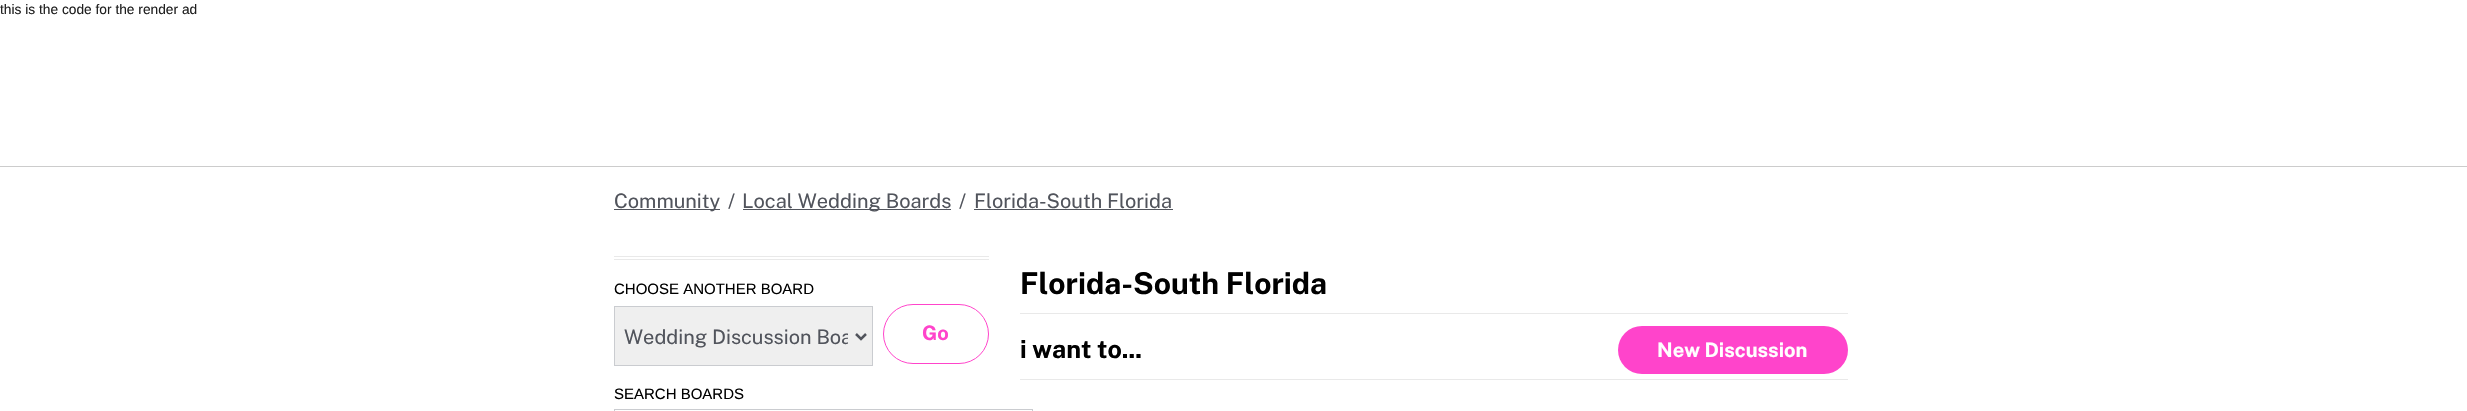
#include "include/core/SkBlurTypes.h"
#include "include/core/SkCanvas.h"
#include "include/core/SkData.h"
#include "include/core/SkFont.h"
#include "include/core/SkFontMgr.h"
#include "include/core/SkImage.h"
#include "include/core/SkMaskFilter.h"
#include "include/core/SkPaint.h"
#include "include/core/SkPathBuilder.h"
#include "include/core/SkTextBlob.h"
#include "include/effects/SkDashPathEffect.h"
#include "include/effects/SkGradientShader.h"
#include "include/utils/SkParsePath.h"

extern sk_sp<SkFontMgr> fontMgr;

void draw(SkCanvas* canvas) {
  SkPaint p;
  p.setAntiAlias(true);
  canvas->clear(SK_ColorWHITE);
  p.setColor(SkColorSetRGB(204, 204, 204));
  canvas->drawRect(SkRect::MakeLTRB(0, 166, 2467, 167), p);
  p.setColor(SkColorSetRGB(81, 84, 92));
  canvas->drawRect(SkRect::MakeLTRB(614, 209, 720, 210), p);
  canvas->drawRect(SkRect::MakeLTRB(743, 209, 951, 210), p);
  canvas->drawRect(SkRect::MakeLTRB(974, 209, 1173, 210), p);
  p.setColor(SkColorSetRGB(233, 233, 233));
  canvas->drawRect(SkRect::MakeLTRB(614, 256, 989, 257), p);
  canvas->drawRect(SkRect::MakeLTRB(614, 259, 989, 260), p);
  p.setColor(SkColorSetRGB(239, 239, 239));
  canvas->drawRect(SkRect::MakeLTRB(614.5f, 306.5f, 872.5f, 365.5f), p);
  p.setStyle(SkPaint::kStroke_Style);
  p.setStrokeWidth(1);
  p.setColor(SkColorSetRGB(202, 204, 208));
  canvas->drawRect(SkRect::MakeLTRB(614.5f, 306.5f, 872.5f, 365.5f), p);
  p.setStrokeWidth(2.5f);
  p.setColor(SkColorSetRGB(81, 84, 92));
  canvas->drawPath(SkPathBuilder().moveTo(856, 334).lineTo(861, 339).lineTo(866, 334).detach(), p);
  p.setStrokeWidth(1);
  p.setColor(SkColorSetRGB(255, 68, 203));
  canvas->drawRoundRect(SkRect::MakeLTRB(883.5f, 304.5f, 988.5f, 363.5f), 29.5f, 29.5f, p);
  p.setColor(SkColorSetRGB(202, 204, 208));
  canvas->drawRect(SkRect::MakeLTRB(614.5f, 409.5f, 1032.5f, 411.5f), p);
  p.setStyle(SkPaint::kFill_Style);
  p.setColor(SkColorSetRGB(233, 233, 233));
  canvas->drawRect(SkRect::MakeLTRB(1020, 313, 1848, 314), p);
  canvas->drawRect(SkRect::MakeLTRB(1020, 379, 1848, 380), p);
  p.setColor(SkColorSetRGB(255, 68, 203));
  canvas->drawRoundRect(SkRect::MakeLTRB(1618, 326, 1848, 374), 24, 24, p);
  SkFont font1(fontMgr->matchFamilyStyle("Liberation Sans", SkFontStyle::Normal()), 13.75f);
  font1.setSubpixel(true);
  p.setColor(SkColorSetRGB(31, 31, 31));
  canvas->drawString("this is the code for the render ad", 0, 14, font1, p);
  SkFont font2(fontMgr->matchFamilyStyle("Public Sans", SkFontStyle::Normal()), 20);
  font2.setSubpixel(true);
  p.setColor(SkColorSetRGB(81, 84, 92));
  canvas->drawString("Community", 614, 208, font2, p);
  canvas->drawString("/", 728, 208, font2, p);
  canvas->drawString("Local Wedding Boards", 742, 208, font2, p);
  canvas->drawString("/", 959, 208, font2, p);
  canvas->drawString("Florida-South Florida", 974, 208, font2, p);
  SkFont font3(fontMgr->matchFamilyStyle("Liberation Sans", SkFontStyle::Normal()), 15);
  font3.setSubpixel(true);
  p.setColor(SK_ColorBLACK);
  canvas->drawString("CHOOSE ANOTHER BOARD", 614, 294, font3, p);
  canvas->save();
  canvas->clipRect(SkRect::MakeLTRB(624, 324, 848, 350));
  p.setColor(SkColorSetRGB(81, 84, 92));
  canvas->drawString("Wedding Discussion Boa", 624, 344, font2, p);
  canvas->restore();
  SkFont font4(fontMgr->matchFamilyStyle("Public Sans", SkFontStyle::Bold()), 20);
  font4.setSubpixel(true);
  p.setColor(SkColorSetRGB(255, 68, 203));
  canvas->drawString("Go", 922, 340, font4, p);
  p.setColor(SK_ColorBLACK);
  canvas->drawString("SEARCH BOARDS", 614, 399, font3, p);
  SkFont font5(fontMgr->matchFamilyStyle("Public Sans", SkFontStyle::Bold()), 30);
  font5.setSubpixel(true);
  canvas->drawString("Florida-South Florida", 1020, 294, font5, p);
  SkFont font6(fontMgr->matchFamilyStyle("Public Sans", SkFontStyle::Bold()), 25);
  font6.setSubpixel(true);
  canvas->drawString("i want to...", 1020, 358, font6, p);
  p.setColor(SK_ColorWHITE);
  canvas->drawString("New Discussion", 1657, 357, font4, p);
}
